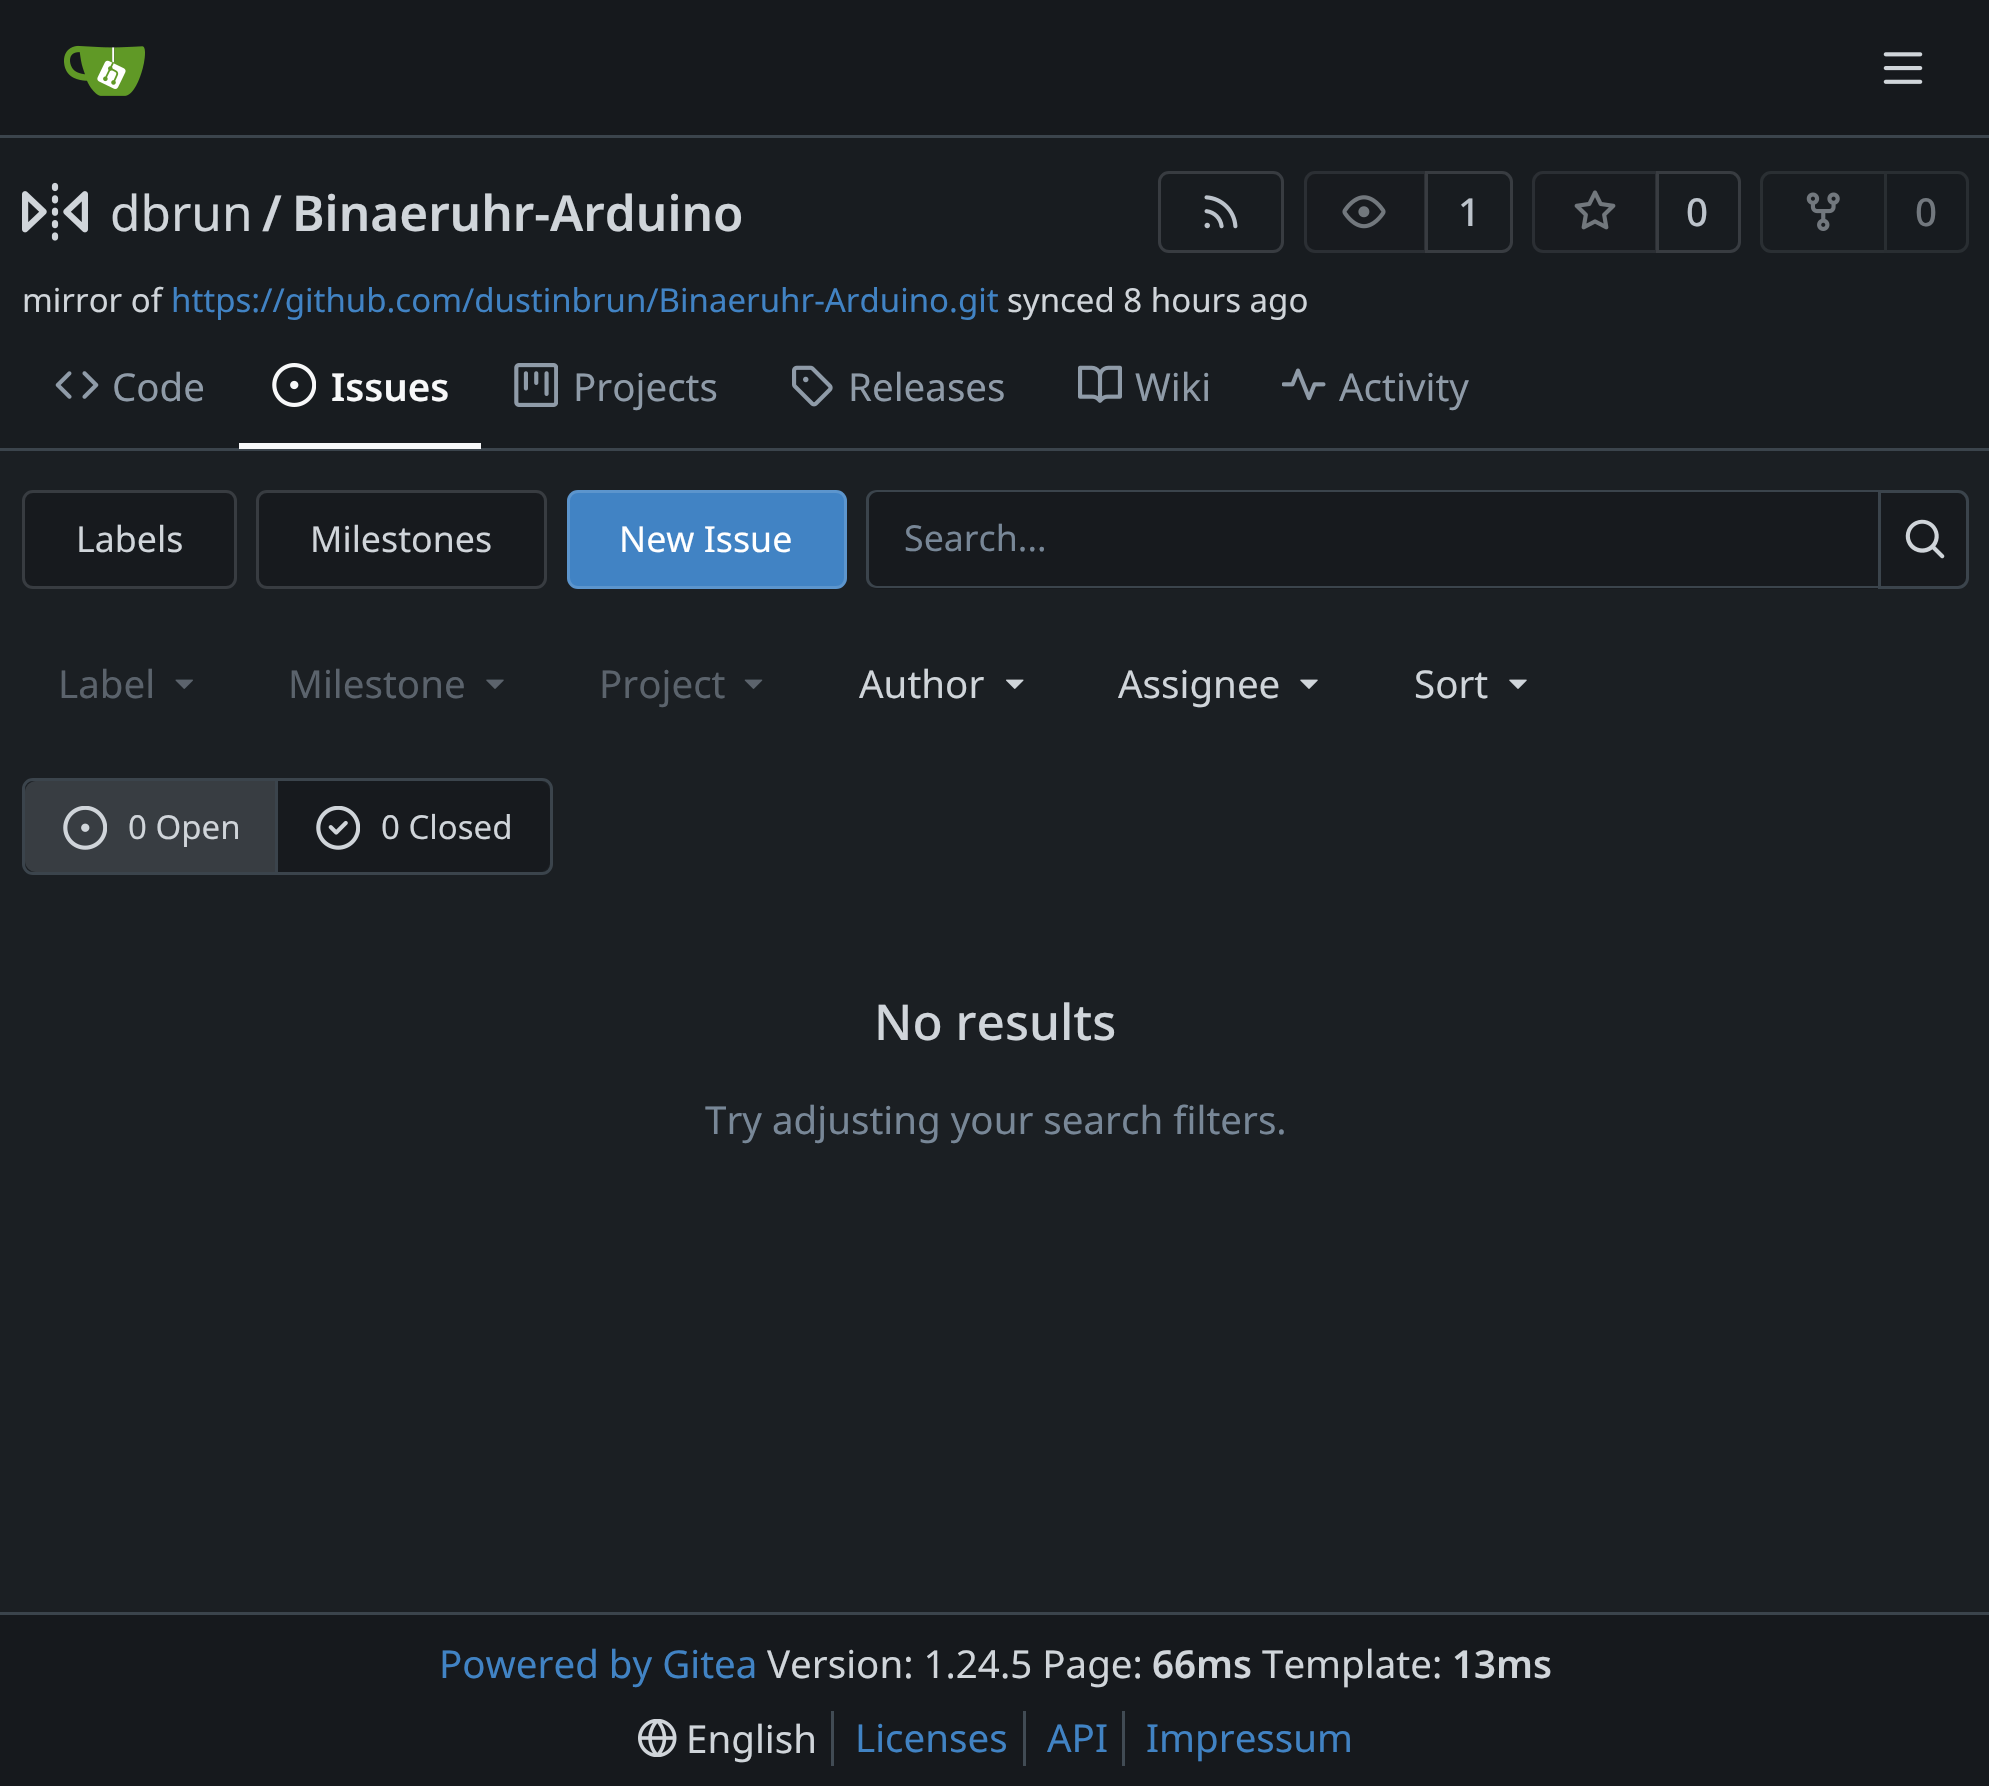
#include "include/core/SkBlurTypes.h"
#include "include/core/SkCanvas.h"
#include "include/core/SkData.h"
#include "include/core/SkFont.h"
#include "include/core/SkFontMgr.h"
#include "include/core/SkImage.h"
#include "include/core/SkMaskFilter.h"
#include "include/core/SkPaint.h"
#include "include/core/SkPathBuilder.h"
#include "include/core/SkTextBlob.h"
#include "include/effects/SkDashPathEffect.h"
#include "include/effects/SkGradientShader.h"
#include "include/utils/SkParsePath.h"

extern sk_sp<SkFontMgr> fontMgr;

void draw(SkCanvas* canvas) {
  SkPaint p;
  p.setAntiAlias(true);
  canvas->clear(SkColorSetRGB(27, 31, 35));
  p.setColor(SkColorSetRGB(22, 25, 29));
  canvas->drawRect(SkRect::MakeLTRB(0, 0, 1989, 135), p);
  p.setColor(SkColorSetRGB(59, 68, 76));
  canvas->drawRect(SkRect::MakeLTRB(0, 135, 1989, 138), p);
  canvas->drawImageRect(SkImages::DeferredFromEncodedData(SkData::MakeFromFileName("images/1.png")), SkRect::MakeLTRB(64, 45, 145, 96), SkSamplingOptions());
  canvas->drawImageRect(SkImages::DeferredFromEncodedData(SkData::MakeFromFileName("images/2.png")), SkRect::MakeLTRB(1883, 52, 1923, 84), SkSamplingOptions());
  p.setColor(SkColorSetRGB(24, 28, 32));
  canvas->drawRect(SkRect::MakeLTRB(0, 138, 1989, 448), p);
  canvas->drawImageRect(SkImages::DeferredFromEncodedData(SkData::MakeFromFileName("images/3.png")), SkRect::MakeLTRB(22, 182, 88, 241), SkSamplingOptions());
  p.setStyle(SkPaint::kStroke_Style);
  p.setStrokeWidth(3);
  p.setColor(SkColorSetRGB(56, 60, 65));
  canvas->drawRoundRect(SkRect::MakeLTRB(1159.5f, 172.5f, 1282.5f, 251.5f), 9.5f, 9.5f, p);
  canvas->drawImageRect(SkImages::DeferredFromEncodedData(SkData::MakeFromFileName("images/4.png")), SkRect::MakeLTRB(1204, 195, 1238, 229), SkSamplingOptions());
  canvas->drawPath(SkPathBuilder().moveTo(1426.5f, 172.5f).lineTo(1502, 172.5f).cubicTo(1507, 172.5f, 1511.5f, 177, 1511.5f, 182).lineTo(1511.5f, 242).cubicTo(1511.5f, 247, 1507, 251.5f, 1502, 251.5f).lineTo(1426.5f, 251.5f).close().detach(), p);
  p.setStyle(SkPaint::kFill_Style);
  p.setColor(SkColorSetARGB(140, 23, 26, 30));
  canvas->drawPath(SkPathBuilder().moveTo(1315, 171).lineTo(1427, 171).lineTo(1427, 253).lineTo(1315, 253).cubicTo(1309, 253, 1304, 248, 1304, 242).lineTo(1304, 182).cubicTo(1304, 176, 1309, 171, 1315, 171).close().detach(), p);
  p.setStyle(SkPaint::kStroke_Style);
  p.setColor(SkColorSetARGB(23, 232, 243, 255));
  canvas->drawPath(SkPathBuilder().moveTo(1315, 172.5f).lineTo(1425.5f, 172.5f).lineTo(1425.5f, 251.5f).lineTo(1315, 251.5f).cubicTo(1310, 251.5f, 1305.5f, 247, 1305.5f, 242).lineTo(1305.5f, 182).cubicTo(1305.5f, 177, 1310, 172.5f, 1315, 172.5f).close().detach(), p);
  canvas->drawImageRect(SkImages::DeferredFromEncodedData(SkData::MakeFromFileName("images/5.png")), SkRect::MakeLTRB(1342, 195, 1386, 229), SkSamplingOptions());
  p.setColor(SkColorSetRGB(56, 60, 65));
  canvas->drawPath(SkPathBuilder().moveTo(1657.5f, 172.5f).lineTo(1730, 172.5f).cubicTo(1735, 172.5f, 1739.5f, 177, 1739.5f, 182).lineTo(1739.5f, 242).cubicTo(1739.5f, 247, 1735, 251.5f, 1730, 251.5f).lineTo(1657.5f, 251.5f).close().detach(), p);
  p.setStyle(SkPaint::kFill_Style);
  p.setColor(SkColorSetARGB(140, 23, 26, 30));
  canvas->drawPath(SkPathBuilder().moveTo(1543, 171).lineTo(1658, 171).lineTo(1658, 253).lineTo(1543, 253).cubicTo(1537, 253, 1532, 248, 1532, 242).lineTo(1532, 182).cubicTo(1532, 176, 1537, 171, 1543, 171).close().detach(), p);
  p.setStyle(SkPaint::kStroke_Style);
  p.setColor(SkColorSetARGB(23, 232, 243, 255));
  canvas->drawPath(SkPathBuilder().moveTo(1543, 172.5f).lineTo(1656.5f, 172.5f).lineTo(1656.5f, 251.5f).lineTo(1543, 251.5f).cubicTo(1538, 251.5f, 1533.5f, 247, 1533.5f, 242).lineTo(1533.5f, 182).cubicTo(1533.5f, 177, 1538, 172.5f, 1543, 172.5f).close().detach(), p);
  canvas->drawImageRect(SkImages::DeferredFromEncodedData(SkData::MakeFromFileName("images/6.png")), SkRect::MakeLTRB(1574, 190, 1616, 230), SkSamplingOptions());
  p.setColor(SkColorSetRGB(42, 47, 51));
  canvas->drawPath(SkPathBuilder().moveTo(1771, 172.5f).lineTo(1885.5f, 172.5f).lineTo(1885.5f, 251.5f).lineTo(1771, 251.5f).cubicTo(1766, 251.5f, 1761.5f, 247, 1761.5f, 242).lineTo(1761.5f, 182).cubicTo(1761.5f, 177, 1766, 172.5f, 1771, 172.5f).close().detach(), p);
  canvas->drawImageRect(SkImages::DeferredFromEncodedData(SkData::MakeFromFileName("images/7.png")), SkRect::MakeLTRB(1806, 192, 1840, 231), SkSamplingOptions());
  p.setStyle(SkPaint::kFill_Style);
  p.setColor(SkColorSetRGB(23, 27, 31));
  canvas->drawPath(SkPathBuilder().moveTo(1885.5f, 172.5f).lineTo(1958, 172.5f).cubicTo(1963, 172.5f, 1967.5f, 177, 1967.5f, 182).lineTo(1967.5f, 242).cubicTo(1967.5f, 247, 1963, 251.5f, 1958, 251.5f).lineTo(1885.5f, 251.5f).close().detach(), p);
  p.setStyle(SkPaint::kStroke_Style);
  p.setColor(SkColorSetRGB(41, 46, 50));
  canvas->drawPath(SkPathBuilder().moveTo(1885.5f, 172.5f).lineTo(1958, 172.5f).cubicTo(1963, 172.5f, 1967.5f, 177, 1967.5f, 182).lineTo(1967.5f, 242).cubicTo(1967.5f, 247, 1963, 251.5f, 1958, 251.5f).lineTo(1885.5f, 251.5f).close().detach(), p);
  canvas->drawImageRect(SkImages::DeferredFromEncodedData(SkData::MakeFromFileName("images/8.png")), SkRect::MakeLTRB(55, 371, 99, 399), SkSamplingOptions());
  p.setStyle(SkPaint::kFill_Style);
  p.setColor(SkColorSetRGB(59, 68, 76));
  canvas->drawRect(SkRect::MakeLTRB(0, 448, 1989, 451), p);
  p.setColor(SkColorSetRGB(247, 248, 249));
  canvas->drawRect(SkRect::MakeLTRB(239, 443, 481, 449), p);
  canvas->drawImageRect(SkImages::DeferredFromEncodedData(SkData::MakeFromFileName("images/9.png")), SkRect::MakeLTRB(272, 363, 316, 407), SkSamplingOptions());
  canvas->drawImageRect(SkImages::DeferredFromEncodedData(SkData::MakeFromFileName("images/10.png")), SkRect::MakeLTRB(514, 363, 558, 407), SkSamplingOptions());
  canvas->drawImageRect(SkImages::DeferredFromEncodedData(SkData::MakeFromFileName("images/11.png")), SkRect::MakeLTRB(792, 365, 833, 407), SkSamplingOptions());
  canvas->drawImageRect(SkImages::DeferredFromEncodedData(SkData::MakeFromFileName("images/12.png")), SkRect::MakeLTRB(1078, 365, 1122, 403), SkSamplingOptions());
  canvas->drawImageRect(SkImages::DeferredFromEncodedData(SkData::MakeFromFileName("images/13.png")), SkRect::MakeLTRB(1282, 368, 1326, 401), SkSamplingOptions());
  p.setColor(SkColorSetRGB(23, 26, 30));
  canvas->drawRoundRect(SkRect::MakeLTRB(23.5f, 491.5f, 235.5f, 587.5f), 9.5f, 9.5f, p);
  p.setStyle(SkPaint::kStroke_Style);
  p.setColor(SkColorSetRGB(56, 60, 65));
  canvas->drawRoundRect(SkRect::MakeLTRB(23.5f, 491.5f, 235.5f, 587.5f), 9.5f, 9.5f, p);
  p.setStyle(SkPaint::kFill_Style);
  p.setColor(SkColorSetRGB(23, 26, 30));
  canvas->drawRoundRect(SkRect::MakeLTRB(257.5f, 491.5f, 545.5f, 587.5f), 9.5f, 9.5f, p);
  p.setStyle(SkPaint::kStroke_Style);
  p.setColor(SkColorSetRGB(56, 60, 65));
  canvas->drawRoundRect(SkRect::MakeLTRB(257.5f, 491.5f, 545.5f, 587.5f), 9.5f, 9.5f, p);
  p.setStyle(SkPaint::kFill_Style);
  p.setColor(SkColorSetRGB(65, 131, 196));
  canvas->drawRoundRect(SkRect::MakeLTRB(567, 490, 847, 589), 11, 11, p);
  p.setStyle(SkPaint::kStroke_Style);
  p.setColor(SkColorSetARGB(41, 232, 243, 255));
  canvas->drawRoundRect(SkRect::MakeLTRB(568.5f, 491.5f, 845.5f, 587.5f), 9.5f, 9.5f, p);
  p.setStyle(SkPaint::kFill_Style);
  p.setColor(SkColorSetRGB(23, 26, 30));
  canvas->drawPath(SkPathBuilder().moveTo(877, 490).lineTo(1878, 490).lineTo(1878, 589).lineTo(877, 589).cubicTo(871, 589, 866, 584, 866, 578).lineTo(866, 501).cubicTo(866, 495, 871, 490, 877, 490).close().detach(), p);
  p.setColor(SkColorSetRGB(59, 68, 76));
  canvas->drawPath(SkPathBuilder(SkPathFillType::kEvenOdd).moveTo(877, 490).lineTo(1878, 490).lineTo(1878, 588).lineTo(877, 588).cubicTo(871, 588, 866, 584, 866, 578).lineTo(866, 500).cubicTo(866, 494, 871, 490, 877, 490).close().moveTo(877, 492).lineTo(1878, 492).lineTo(1878, 586).lineTo(877, 586).cubicTo(873, 586, 869, 582, 869, 578).lineTo(869, 500).cubicTo(869, 496, 873, 492, 877, 492).close().detach(), p);
  p.setColor(SkColorSetRGB(23, 26, 30));
  canvas->drawPath(SkPathBuilder().moveTo(1879.5f, 491.5f).lineTo(1958, 491.5f).cubicTo(1963, 491.5f, 1967.5f, 496, 1967.5f, 501).lineTo(1967.5f, 578).cubicTo(1967.5f, 583, 1963, 587.5f, 1958, 587.5f).lineTo(1879.5f, 587.5f).close().detach(), p);
  p.setStyle(SkPaint::kStroke_Style);
  p.setColor(SkColorSetRGB(59, 68, 76));
  canvas->drawPath(SkPathBuilder().moveTo(1879.5f, 491.5f).lineTo(1958, 491.5f).cubicTo(1963, 491.5f, 1967.5f, 496, 1967.5f, 501).lineTo(1967.5f, 578).cubicTo(1967.5f, 583, 1963, 587.5f, 1958, 587.5f).lineTo(1879.5f, 587.5f).close().detach(), p);
  canvas->drawImageRect(SkImages::DeferredFromEncodedData(SkData::MakeFromFileName("images/14.png")), SkRect::MakeLTRB(1905, 519, 1945, 559), SkSamplingOptions());
  canvas->drawImageRect(SkImages::DeferredFromEncodedData(SkData::MakeFromFileName("images/15.png")), SkRect::MakeLTRB(175, 679, 193, 689), SkSamplingOptions());
  canvas->drawImageRect(SkImages::DeferredFromEncodedData(SkData::MakeFromFileName("images/16.png")), SkRect::MakeLTRB(486, 679, 504, 689), SkSamplingOptions());
  canvas->drawImageRect(SkImages::DeferredFromEncodedData(SkData::MakeFromFileName("images/17.png")), SkRect::MakeLTRB(744, 679, 763, 689), SkSamplingOptions());
  canvas->drawImageRect(SkImages::DeferredFromEncodedData(SkData::MakeFromFileName("images/18.png")), SkRect::MakeLTRB(1006, 679, 1024, 689), SkSamplingOptions());
  canvas->drawImageRect(SkImages::DeferredFromEncodedData(SkData::MakeFromFileName("images/19.png")), SkRect::MakeLTRB(1300, 679, 1318, 689), SkSamplingOptions());
  canvas->drawImageRect(SkImages::DeferredFromEncodedData(SkData::MakeFromFileName("images/19.png")), SkRect::MakeLTRB(1509, 679, 1527, 689), SkSamplingOptions());
  canvas->drawRoundRect(SkRect::MakeLTRB(23.5f, 779.5f, 551.5f, 873.5f), 9.5f, 9.5f, p);
  p.setStyle(SkPaint::kFill_Style);
  p.setColor(SkColorSetRGB(56, 61, 66));
  canvas->drawPath(SkPathBuilder().moveTo(36, 781).lineTo(278, 781).lineTo(278, 872).lineTo(36, 872).cubicTo(30, 872, 25, 867, 25, 861).lineTo(25, 792).cubicTo(25, 786, 30, 781, 36, 781).close().detach(), p);
  canvas->drawImageRect(SkImages::DeferredFromEncodedData(SkData::MakeFromFileName("images/20.png")), SkRect::MakeLTRB(63, 806, 107, 850), SkSamplingOptions());
  p.setColor(SkColorSetRGB(59, 68, 76));
  canvas->drawRect(SkRect::MakeLTRB(275, 781, 278, 872), p);
  p.setColor(SkColorSetRGB(23, 26, 30));
  canvas->drawPath(SkPathBuilder().moveTo(278, 781).lineTo(539, 781).cubicTo(545, 781, 550, 786, 550, 792).lineTo(550, 861).cubicTo(550, 867, 545, 872, 539, 872).lineTo(278, 872).close().detach(), p);
  canvas->drawImageRect(SkImages::DeferredFromEncodedData(SkData::MakeFromFileName("images/21.png")), SkRect::MakeLTRB(316, 806, 360, 850), SkSamplingOptions());
  p.setColor(SkColorSetRGB(22, 25, 29));
  canvas->drawRect(SkRect::MakeLTRB(0, 1615, 1989, 1786), p);
  p.setColor(SkColorSetRGB(59, 68, 76));
  canvas->drawRect(SkRect::MakeLTRB(0, 1612, 1989, 1615), p);
  canvas->drawImageRect(SkImages::DeferredFromEncodedData(SkData::MakeFromFileName("images/22.png")), SkRect::MakeLTRB(638, 1719, 677, 1757), SkSamplingOptions());
  p.setColor(SkColorSetRGB(65, 75, 84));
  canvas->drawRect(SkRect::MakeLTRB(831, 1711, 834, 1766), p);
  canvas->drawRect(SkRect::MakeLTRB(1023, 1711, 1026, 1766), p);
  canvas->drawRect(SkRect::MakeLTRB(1122, 1711, 1125, 1766), p);
  SkFont font1(fontMgr->matchFamilyStyle("Noto Sans", SkFontStyle::Normal()), 49.5f);
  font1.setSubpixel(true);
  p.setColor(SkColorSetRGB(208, 213, 218));
  canvas->drawString("dbrun", 110, 231, font1, p);
  SkFont font2(fontMgr->matchFamilyStyle("Noto Sans", SkFontStyle(600, SkFontStyle::kNormal_Width, SkFontStyle::kUpright_Slant)), 49.5f);
  font2.setSubpixel(true);
  canvas->drawString("/", 262, 231, font2, p);
  canvas->drawString("Binaeruhr-Arduino", 292, 231, font2, p);
  SkFont font3(fontMgr->matchFamilyStyle("Noto Sans", SkFontStyle(500, SkFontStyle::kNormal_Width, SkFontStyle::kUpright_Slant)), 38.5f);
  font3.setSubpixel(true);
  p.setColor(SkColorSetRGB(188, 195, 203));
  canvas->drawString("1", 1458, 226, font3, p);
  canvas->drawString("0", 1686, 226, font3, p);
  p.setColor(SkColorSetRGB(114, 120, 126));
  canvas->drawString("0", 1915, 226, font3, p);
  SkFont font4(fontMgr->matchFamilyStyle("Noto Sans", SkFontStyle::Normal()), 33);
  font4.setSubpixel(true);
  p.setColor(SkColorSetRGB(208, 213, 218));
  canvas->drawString("mirror of", 22, 312, font4, p);
  p.setColor(SkColorSetRGB(65, 131, 196));
  canvas->drawString("https://github.com/dustinbrun/Binaeruhr-Arduino.git", 171, 312, font4, p);
  p.setColor(SkColorSetRGB(208, 213, 218));
  canvas->drawString("synced 8 hours ago", 1007, 312, font4, p);
  SkFont font5(fontMgr->matchFamilyStyle("Noto Sans", SkFontStyle::Normal()), 38.5f);
  font5.setSubpixel(true);
  p.setColor(SkColorSetRGB(143, 155, 168));
  canvas->drawString("Code", 112, 401, font5, p);
  SkFont font6(fontMgr->matchFamilyStyle("Noto Sans", SkFontStyle(600, SkFontStyle::kNormal_Width, SkFontStyle::kUpright_Slant)), 38.5f);
  font6.setSubpixel(true);
  p.setColor(SkColorSetRGB(247, 248, 249));
  canvas->drawString("Issues", 331, 401, font6, p);
  p.setColor(SkColorSetRGB(143, 155, 168));
  canvas->drawString("Projects", 573, 401, font5, p);
  canvas->drawString("Releases", 848, 401, font5, p);
  canvas->drawString("Wiki", 1135, 401, font5, p);
  canvas->drawString("Activity", 1339, 401, font5, p);
  SkFont font7(fontMgr->matchFamilyStyle("Noto Sans", SkFontStyle::Normal()), 35.75f);
  font7.setSubpixel(true);
  p.setColor(SkColorSetRGB(208, 213, 218));
  canvas->drawString("Labels", 76, 552, font7, p);
  canvas->drawString("Milestones", 310, 552, font7, p);
  p.setColor(SK_ColorWHITE);
  canvas->drawString("New Issue", 619, 552, font7, p);
  p.setColor(SkColorSetRGB(120, 135, 151));
  canvas->drawString("Search...", 904, 551, font7, p);
  p.setColor(SkColorSetRGB(91, 99, 108));
  canvas->drawString("Label", 58, 698, font5, p);
  canvas->drawString("Milestone", 288, 698, font5, p);
  canvas->drawString("Project", 599, 698, font5, p);
  p.setColor(SkColorSetRGB(208, 213, 218));
  canvas->drawString("Author", 859, 698, font5, p);
  canvas->drawString("Assignee", 1118, 698, font5, p);
  canvas->drawString("Sort", 1414, 698, font5, p);
  canvas->drawString("0 Open", 128, 839, font4, p);
  canvas->drawString("0 Closed", 381, 839, font4, p);
  SkFont font8(fontMgr->matchFamilyStyle("Noto Sans", SkFontStyle(500, SkFontStyle::kNormal_Width, SkFontStyle::kUpright_Slant)), 49.5f);
  font8.setSubpixel(true);
  canvas->drawString("No results", 874, 1040, font8, p);
  p.setColor(SkColorSetRGB(120, 135, 151));
  canvas->drawString("Try adjusting your search filters.", 705, 1134, font5, p);
  p.setColor(SkColorSetRGB(65, 131, 196));
  canvas->drawString("Powered by Gitea", 439, 1678, font5, p);
  p.setColor(SkColorSetRGB(208, 213, 218));
  canvas->drawString("Version: 1.24.5 Page:", 767, 1678, font5, p);
  canvas->drawString("66ms", 1152, 1678, font6, p);
  canvas->drawString("Template:", 1262, 1678, font5, p);
  canvas->drawString("13ms", 1452, 1678, font6, p);
  canvas->drawString("English", 686, 1753, font5, p);
  p.setColor(SkColorSetRGB(65, 131, 196));
  canvas->drawString("Licenses", 855, 1752, font5, p);
  canvas->drawString("API", 1047, 1752, font5, p);
  canvas->drawString("Impressum", 1146, 1752, font5, p);
}
